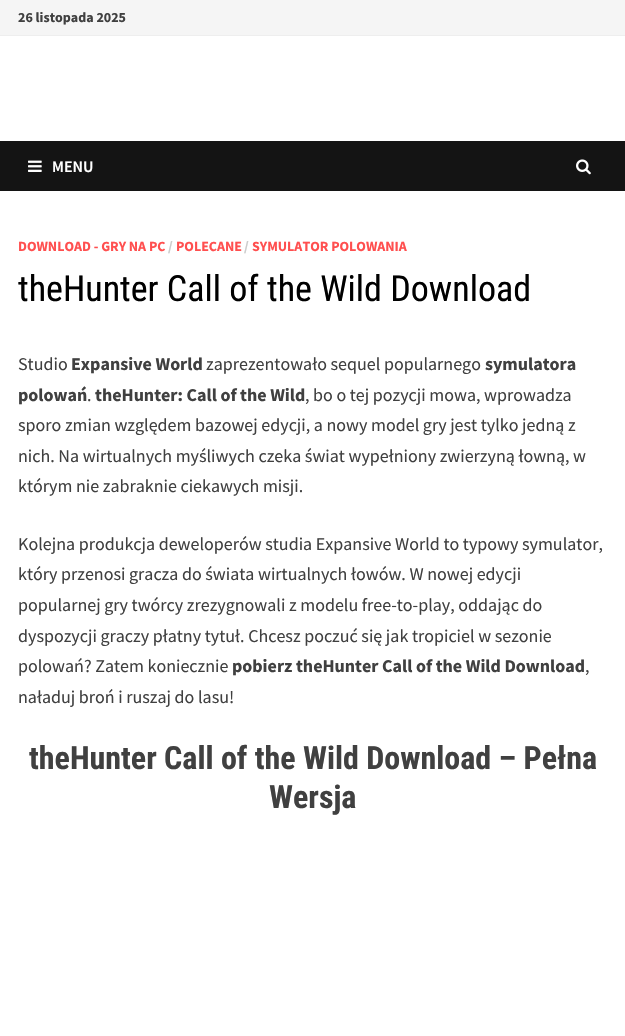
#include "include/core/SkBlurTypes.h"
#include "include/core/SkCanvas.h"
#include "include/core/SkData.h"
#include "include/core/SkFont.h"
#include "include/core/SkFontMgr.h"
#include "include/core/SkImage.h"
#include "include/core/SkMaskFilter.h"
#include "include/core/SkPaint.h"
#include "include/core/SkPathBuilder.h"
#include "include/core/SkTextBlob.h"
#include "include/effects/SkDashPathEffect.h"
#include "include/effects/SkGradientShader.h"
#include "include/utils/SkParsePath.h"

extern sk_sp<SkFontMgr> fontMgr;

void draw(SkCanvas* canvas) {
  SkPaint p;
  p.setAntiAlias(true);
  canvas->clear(SK_ColorWHITE);
  p.setColor(SkColorSetRGB(245, 245, 245));
  canvas->drawRect(SkRect::MakeLTRB(0, 0, 625, 35), p);
  p.setColor(SkColorSetRGB(238, 238, 238));
  canvas->drawRect(SkRect::MakeLTRB(0, 35, 625, 36), p);
  p.setColor(SkColorSetRGB(20, 20, 20));
  canvas->drawRect(SkRect::MakeLTRB(0, 141, 625, 191), p);
  canvas->drawImageRect(SkImages::DeferredFromEncodedData(SkData::MakeFromFileName("images/1.png")), SkRect::MakeLTRB(28, 160, 42, 172), SkSamplingOptions());
  canvas->drawImageRect(SkImages::DeferredFromEncodedData(SkData::MakeFromFileName("images/2.png")), SkRect::MakeLTRB(576, 159, 591, 175), SkSamplingOptions());
  SkFont font1(fontMgr->matchFamilyStyle("Source Sans Pro", SkFontStyle::Bold()), 14);
  font1.setSubpixel(true);
  p.setColor(SkColorSetRGB(64, 64, 64));
  canvas->drawString("26 listopada 2025", 18, 22, font1, p);
  SkFont font2(fontMgr->matchFamilyStyle("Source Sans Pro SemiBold", SkFontStyle(600, SkFontStyle::kNormal_Width, SkFontStyle::kUpright_Slant)), 16);
  font2.setSubpixel(true);
  p.setColor(SK_ColorWHITE);
  canvas->drawString("MENU", 52, 172, font2, p);
  p.setColor(SkColorSetRGB(255, 79, 79));
  canvas->drawString("DOWNLOAD - GRY NA PC", 18, 251, font1, p);
  p.setColor(SkColorSetRGB(204, 204, 204));
  canvas->drawString("/", 168, 251, font1, p);
  p.setColor(SkColorSetRGB(255, 79, 79));
  canvas->drawString("POLECANE", 176, 251, font1, p);
  p.setColor(SkColorSetRGB(204, 204, 204));
  canvas->drawString("/", 244, 251, font1, p);
  p.setColor(SkColorSetRGB(255, 79, 79));
  canvas->drawString("SYMULATOR POLOWANIA", 252, 251, font1, p);
  SkFont font3(fontMgr->matchFamilyStyle("Roboto Condensed", SkFontStyle::Normal()), 36);
  font3.setSubpixel(true);
  p.setColor(SK_ColorBLACK);
  canvas->drawString("theHunter Call of the Wild Download", 18, 301, font3, p);
  SkFont font4(fontMgr->matchFamilyStyle("Source Sans Pro", SkFontStyle::Normal()), 18);
  font4.setSubpixel(true);
  p.setColor(SkColorSetRGB(64, 64, 64));
  canvas->drawString("Studio", 18, 370, font4, p);
  SkFont font5(fontMgr->matchFamilyStyle("Source Sans Pro", SkFontStyle::Bold()), 18);
  font5.setSubpixel(true);
  canvas->drawString("Expansive World", 71, 370, font5, p);
  canvas->drawString("zaprezentowało sequel popularnego", 206, 370, font4, p);
  canvas->drawString("symulatora", 485, 370, font5, p);
  canvas->drawString("polowań", 18, 401, font5, p);
  canvas->drawString(".", 87, 401, font4, p);
  canvas->drawString("theHunter: Call of the Wild", 95, 401, font5, p);
  canvas->drawString(", bo o tej pozycji mowa, wprowadza", 305, 401, font4, p);
  canvas->drawString("sporo zmian względem bazowej edycji, a nowy model gry jest tylko jedną z", 18, 431, font4, p);
  canvas->drawString("nich. Na wirtualnych myśliwych czeka świat wypełniony zwierzyną łowną, w", 18, 462, font4, p);
  canvas->drawString("którym nie zabraknie ciekawych misji.", 18, 492, font4, p);
  canvas->drawString("Kolejna produkcja deweloperów studia Expansive World to typowy symulator,", 18, 550, font4, p);
  canvas->drawString("który przenosi gracza do świata wirtualnych łowów. W nowej edycji", 18, 580, font4, p);
  canvas->drawString("popularnej gry twórcy zrezygnowali z modelu free-to-play, oddając do", 18, 611, font4, p);
  canvas->drawString("dyspozycji graczy płatny tytuł. Chcesz poczuć się jak tropiciel w sezonie", 18, 642, font4, p);
  canvas->drawString("polowań? Zatem koniecznie", 18, 672, font4, p);
  canvas->drawString("pobierz theHunter Call of the Wild Download", 232, 672, font5, p);
  canvas->drawString(",", 585, 672, font4, p);
  canvas->drawString("naładuj broń i ruszaj do lasu!", 18, 703, font4, p);
  SkFont font6(fontMgr->matchFamilyStyle("Roboto Condensed", SkFontStyle::Bold()), 32);
  font6.setSubpixel(true);
  canvas->drawString("theHunter Call of the Wild Download – Pełna", 29, 769, font6, p);
  canvas->drawString("Wersja", 269, 808, font6, p);
}
